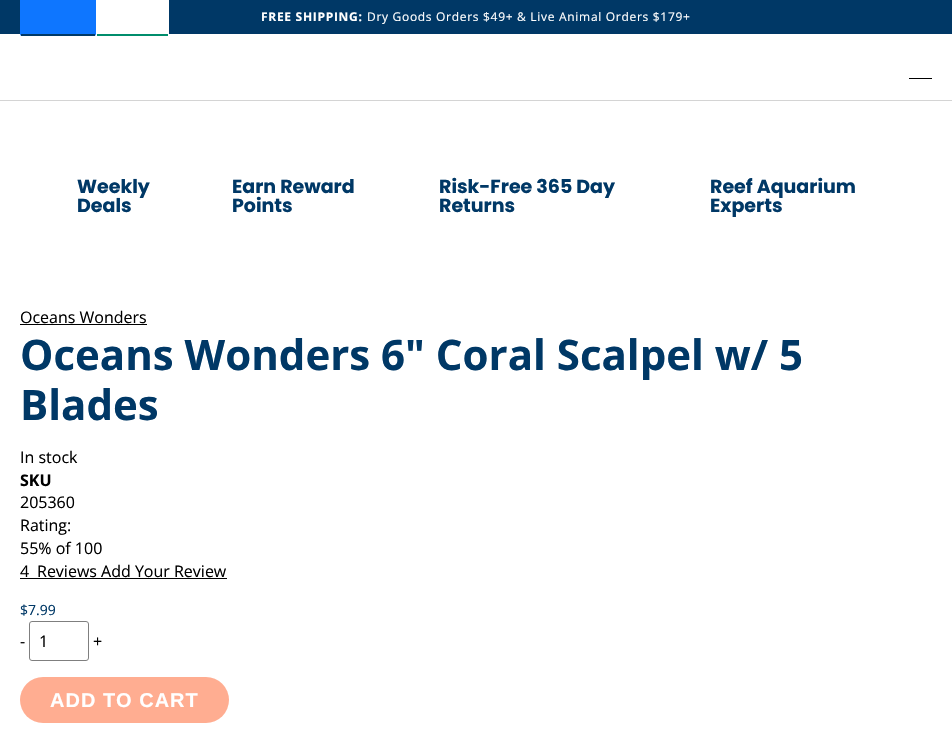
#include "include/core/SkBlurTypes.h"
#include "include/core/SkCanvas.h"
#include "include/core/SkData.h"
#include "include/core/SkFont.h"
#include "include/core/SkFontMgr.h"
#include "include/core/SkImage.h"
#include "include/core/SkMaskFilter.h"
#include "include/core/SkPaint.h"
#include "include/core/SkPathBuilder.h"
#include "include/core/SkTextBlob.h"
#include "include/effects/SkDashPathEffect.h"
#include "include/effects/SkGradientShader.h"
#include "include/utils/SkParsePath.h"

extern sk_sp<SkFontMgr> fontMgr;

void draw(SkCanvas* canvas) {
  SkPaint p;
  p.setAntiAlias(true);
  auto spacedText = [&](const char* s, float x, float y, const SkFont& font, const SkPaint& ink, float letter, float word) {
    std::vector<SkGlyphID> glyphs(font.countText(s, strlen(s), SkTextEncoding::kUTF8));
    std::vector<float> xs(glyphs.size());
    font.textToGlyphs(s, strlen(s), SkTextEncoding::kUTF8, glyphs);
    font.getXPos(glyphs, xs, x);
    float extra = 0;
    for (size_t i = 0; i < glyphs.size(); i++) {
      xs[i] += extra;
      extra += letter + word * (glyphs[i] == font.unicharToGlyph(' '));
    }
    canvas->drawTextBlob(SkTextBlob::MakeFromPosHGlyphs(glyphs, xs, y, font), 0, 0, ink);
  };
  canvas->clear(SK_ColorWHITE);
  p.setColor(SkColorSetRGB(0, 56, 102));
  canvas->drawRect(SkRect::MakeLTRB(0, 0, 952, 34), p);
  p.setColor(SkColorSetRGB(14, 118, 255));
  canvas->drawPath(SkPathBuilder().moveTo(20, 0).lineTo(96, 0).lineTo(96, 34).cubicTo(96, 35, 95, 36, 94, 36).lineTo(22, 36).cubicTo(21, 36, 20, 35, 20, 34).close().detach(), p);
  p.setColor(SkColorSetRGB(0, 57, 103));
  canvas->drawRect(SkRect::MakeLTRB(21, 34, 95, 36), p);
  p.setColor(SK_ColorWHITE);
  canvas->drawPath(SkPathBuilder().moveTo(96, 0).lineTo(169, 0).lineTo(169, 34).cubicTo(169, 35, 168, 36, 167, 36).lineTo(98, 36).cubicTo(97, 36, 96, 35, 96, 34).close().detach(), p);
  p.setColor(SkColorSetRGB(0, 141, 108));
  canvas->drawRect(SkRect::MakeLTRB(97, 34, 168, 36), p);
  p.setColor(SkColorSetRGB(212, 212, 212));
  canvas->drawRect(SkRect::MakeLTRB(0, 100, 952, 101), p);
  p.setColor(SK_ColorBLACK);
  canvas->drawRect(SkRect::MakeLTRB(909, 78, 932, 79), p);
  canvas->drawRect(SkRect::MakeLTRB(20, 324, 147, 325), p);
  canvas->drawRect(SkRect::MakeLTRB(20, 578, 227, 579), p);
  p.setStyle(SkPaint::kStroke_Style);
  p.setStrokeWidth(1);
  p.setColor(SkColorSetRGB(127, 127, 127));
  canvas->drawRoundRect(SkRect::MakeLTRB(29.5f, 621.5f, 88.5f, 660.5f), 2.5f, 2.5f, p);
  p.setStyle(SkPaint::kFill_Style);
  p.setColor(SkColorSetRGB(255, 173, 145));
  canvas->drawRoundRect(SkRect::MakeLTRB(20, 677, 229, 723), 23, 23, p);
  SkFont font1(fontMgr->matchFamilyStyle("Open Sans", SkFontStyle::Bold()), 12);
  font1.setSubpixel(true);
  p.setColor(SK_ColorWHITE);
  spacedText("FREE SHIPPING:", 261, 21, font1, p, 0.7f, 0);
  SkFont font2(fontMgr->matchFamilyStyle("Open Sans", SkFontStyle::Normal()), 12);
  font2.setSubpixel(true);
  spacedText("Dry Goods Orders $49+ & Live Animal Orders $179+", 367, 21, font2, p, 0.7f, 0);
  SkFont font3(fontMgr->matchFamilyStyle("Poppins", SkFontStyle::Bold()), 19);
  font3.setSubpixel(true);
  p.setColor(SkColorSetRGB(0, 56, 102));
  canvas->drawString("Weekly", 77, 193, font3, p);
  canvas->drawString("Deals", 77, 212, font3, p);
  canvas->drawString("Earn Reward", 232, 193, font3, p);
  canvas->drawString("Points", 232, 212, font3, p);
  canvas->drawString("Risk-Free 365 Day", 439, 193, font3, p);
  canvas->drawString("Returns", 439, 212, font3, p);
  canvas->drawString("Reef Aquarium", 710, 193, font3, p);
  canvas->drawString("Experts", 710, 212, font3, p);
  SkFont font4(fontMgr->matchFamilyStyle("Open Sans", SkFontStyle::Normal()), 16);
  font4.setSubpixel(true);
  p.setColor(SK_ColorBLACK);
  canvas->drawString("Oceans Wonders", 20, 323, font4, p);
  SkFont font5(fontMgr->matchFamilyStyle("Open Sans", SkFontStyle::Bold()), 42);
  font5.setSubpixel(true);
  p.setColor(SkColorSetRGB(0, 56, 102));
  canvas->drawString("Oceans Wonders 6\" Coral Scalpel w/ 5", 20, 370, font5, p);
  canvas->drawString("Blades", 20, 420, font5, p);
  p.setColor(SK_ColorBLACK);
  canvas->drawString("In stock", 20, 463, font4, p);
  SkFont font6(fontMgr->matchFamilyStyle("Open Sans", SkFontStyle::Bold()), 16);
  font6.setSubpixel(true);
  canvas->drawString("SKU", 20, 486, font6, p);
  canvas->drawString("205360", 20, 508, font4, p);
  canvas->drawString("Rating:", 20, 531, font4, p);
  canvas->drawString("55% of 100", 20, 554, font4, p);
  canvas->drawString("4", 20, 577, font4, p);
  canvas->drawString("Reviews Add Your Review", 37, 577, font4, p);
  SkFont font7(fontMgr->matchFamilyStyle("Open Sans", SkFontStyle::Normal()), 14);
  font7.setSubpixel(true);
  p.setColor(SkColorSetRGB(0, 56, 102));
  canvas->drawString("$7.99", 20, 615, font7, p);
  p.setColor(SK_ColorBLACK);
  canvas->drawString("-", 20, 647, font4, p);
  canvas->drawString("1", 39, 647, font4, p);
  canvas->drawString("+", 93, 647, font4, p);
  SkFont font8(fontMgr->matchFamilyStyle("Liberation Sans", SkFontStyle::Bold()), 20);
  font8.setSubpixel(true);
  p.setColor(SK_ColorWHITE);
  spacedText("ADD TO CART", 50, 707, font8, p, 1, 0);
}
